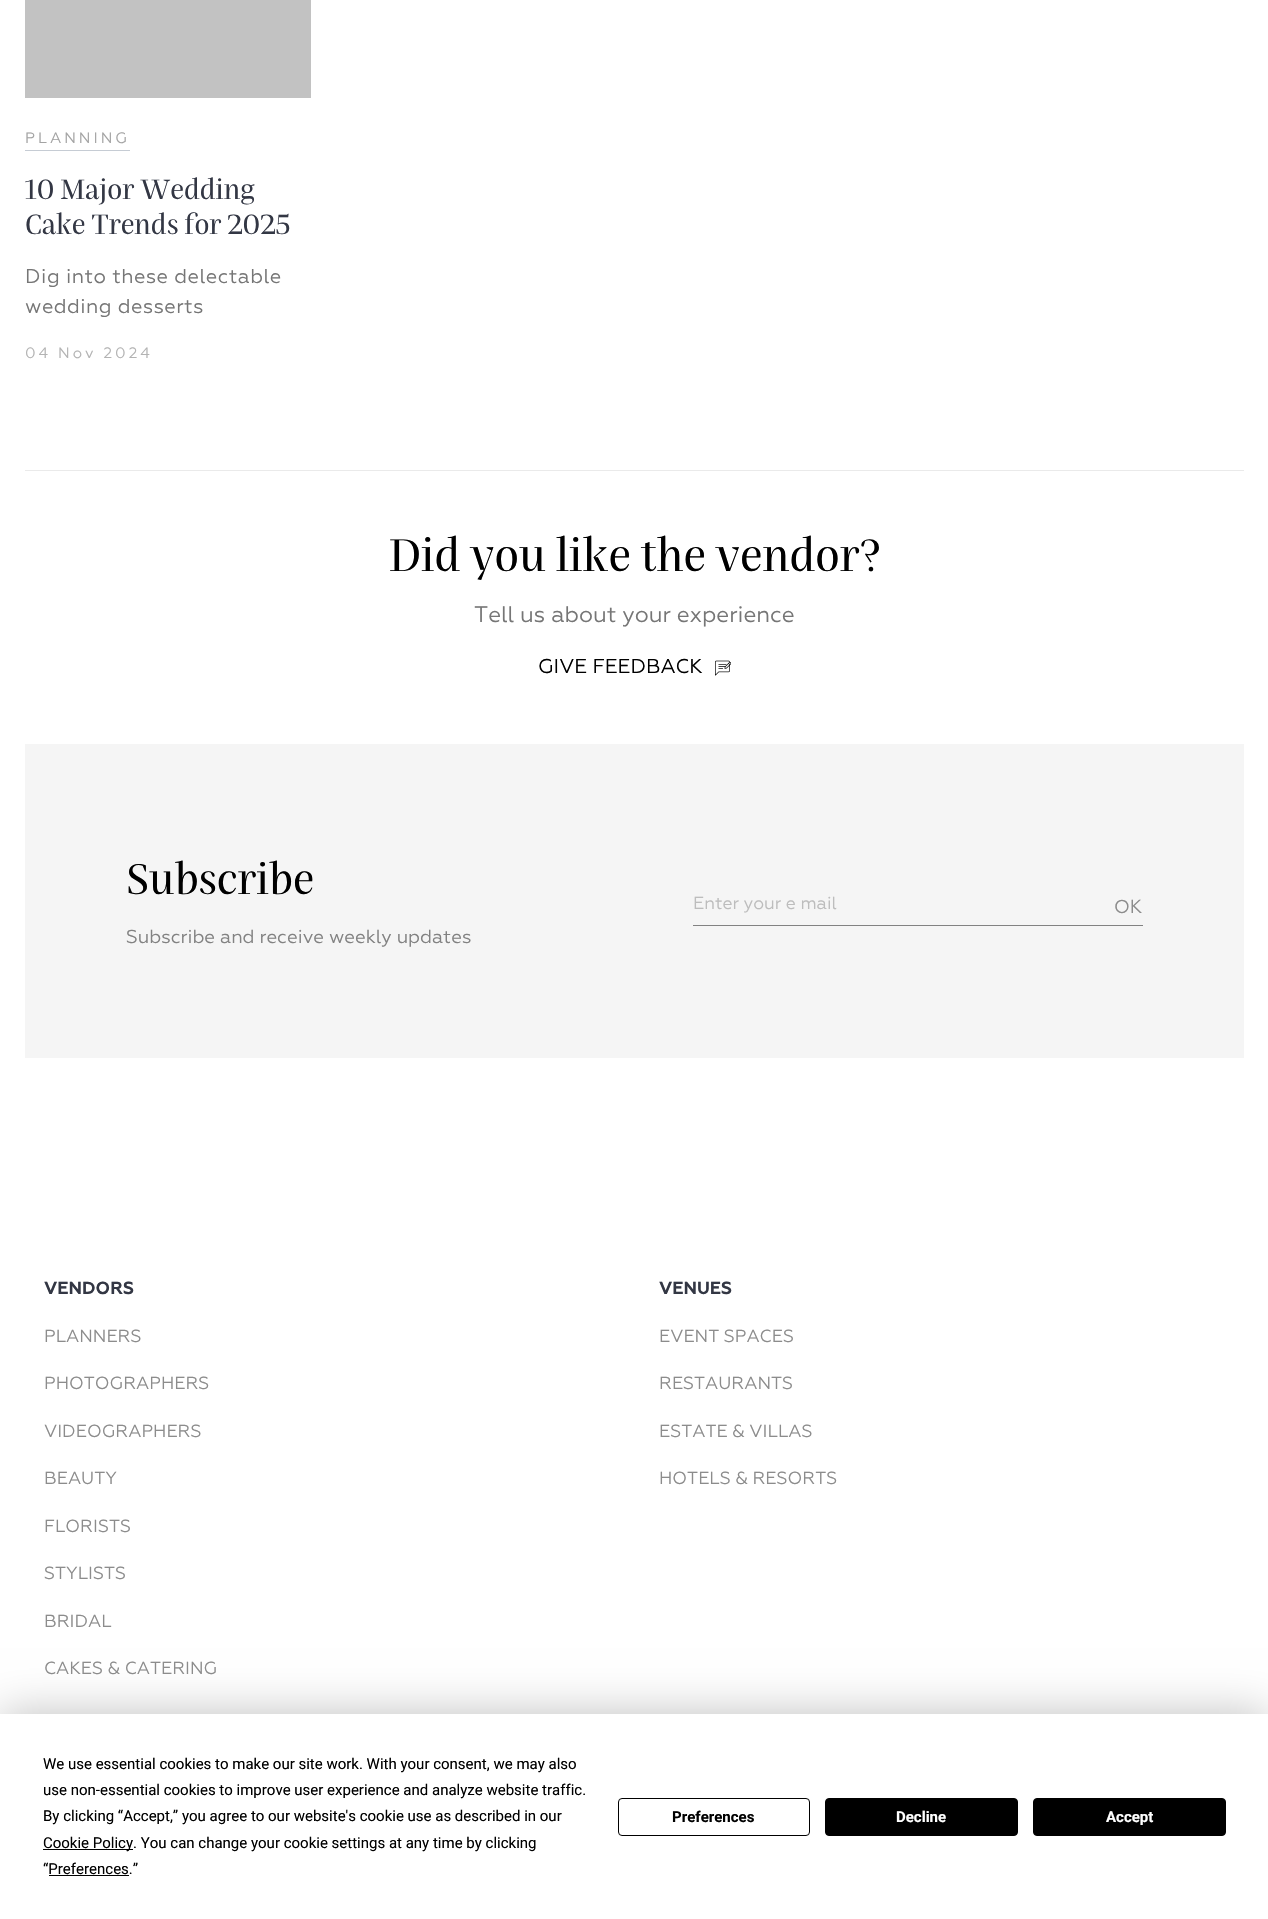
#include "include/core/SkBlurTypes.h"
#include "include/core/SkCanvas.h"
#include "include/core/SkData.h"
#include "include/core/SkFont.h"
#include "include/core/SkFontMgr.h"
#include "include/core/SkImage.h"
#include "include/core/SkMaskFilter.h"
#include "include/core/SkPaint.h"
#include "include/core/SkPathBuilder.h"
#include "include/core/SkTextBlob.h"
#include "include/effects/SkDashPathEffect.h"
#include "include/effects/SkGradientShader.h"
#include "include/utils/SkParsePath.h"

extern sk_sp<SkFontMgr> fontMgr;

void draw(SkCanvas* canvas) {
  SkPaint p;
  p.setAntiAlias(true);
  auto spacedText = [&](const char* s, float x, float y, const SkFont& font, const SkPaint& ink, float letter, float word) {
    std::vector<SkGlyphID> glyphs(font.countText(s, strlen(s), SkTextEncoding::kUTF8));
    std::vector<float> xs(glyphs.size());
    font.textToGlyphs(s, strlen(s), SkTextEncoding::kUTF8, glyphs);
    font.getXPos(glyphs, xs, x);
    float extra = 0;
    for (size_t i = 0; i < glyphs.size(); i++) {
      xs[i] += extra;
      extra += letter + word * (glyphs[i] == font.unicharToGlyph(' '));
    }
    canvas->drawTextBlob(SkTextBlob::MakeFromPosHGlyphs(glyphs, xs, y, font), 0, 0, ink);
  };
  canvas->clear(SK_ColorWHITE);
  p.setColor(SkColorSetRGB(194, 194, 194));
  canvas->drawRect(SkRect::MakeLTRB(25, 0, 311, 98), p);
  p.setColor(SkColorSetRGB(198, 204, 212));
  canvas->drawRect(SkRect::MakeLTRB(25, 150, 130, 151), p);
  p.setColor(SkColorSetRGB(234, 234, 234));
  canvas->drawRect(SkRect::MakeLTRB(25, 470, 1244, 471), p);
  canvas->drawImageRect(SkImages::DeferredFromEncodedData(SkData::MakeFromFileName("images/1.png")), SkRect::MakeLTRB(715, 660, 731, 676), SkSamplingOptions());
  p.setColor(SkColorSetRGB(245, 245, 245));
  canvas->drawRect(SkRect::MakeLTRB(25, 744, 1244, 1058), p);
  p.setColor(SkColorSetRGB(130, 130, 130));
  canvas->drawRect(SkRect::MakeLTRB(693, 925, 1143, 926), p);
  p.setColor(SkColorSetARGB(64, 0, 0, 0));
  p.setMaskFilter(SkMaskFilter::MakeBlur(kNormal_SkBlurStyle, 22));
  canvas->drawRect(SkRect::MakeLTRB(0, 1714, 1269, 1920), p);
  p.setMaskFilter(nullptr);
  p.setColor(SK_ColorWHITE);
  canvas->drawRect(SkRect::MakeLTRB(0, 1714, 1268, 1919), p);
  p.setColor(SK_ColorBLACK);
  canvas->drawRect(SkRect::MakeLTRB(43, 1849, 133, 1850), p);
  canvas->drawRect(SkRect::MakeLTRB(49, 1875, 129, 1876), p);
  p.setStyle(SkPaint::kStroke_Style);
  p.setStrokeWidth(1);
  canvas->drawRoundRect(SkRect::MakeLTRB(618.5f, 1798.5f, 809.5f, 1835.5f), 3.5f, 3.5f, p);
  p.setStyle(SkPaint::kFill_Style);
  canvas->drawRoundRect(SkRect::MakeLTRB(825.5f, 1798.5f, 1017.5f, 1835.5f), 3.5f, 3.5f, p);
  p.setStyle(SkPaint::kStroke_Style);
  canvas->drawRoundRect(SkRect::MakeLTRB(825.5f, 1798.5f, 1017.5f, 1835.5f), 3.5f, 3.5f, p);
  p.setStyle(SkPaint::kFill_Style);
  canvas->drawRoundRect(SkRect::MakeLTRB(1033.5f, 1798.5f, 1225.5f, 1835.5f), 3.5f, 3.5f, p);
  p.setStyle(SkPaint::kStroke_Style);
  canvas->drawRoundRect(SkRect::MakeLTRB(1033.5f, 1798.5f, 1225.5f, 1835.5f), 3.5f, 3.5f, p);
  SkFont font1(fontMgr->matchFamilyStyle("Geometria", SkFontStyle::Normal()), 15);
  font1.setSubpixel(true);
  p.setStyle(SkPaint::kFill_Style);
  p.setColor(SkColorSetRGB(163, 163, 163));
  spacedText("PLANNING", 25, 143, font1, p, 3, 0);
  SkFont font2(fontMgr->matchFamilyStyle("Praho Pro", SkFontStyle::Normal()), 27.5f);
  font2.setSubpixel(true);
  p.setColor(SkColorSetRGB(51, 55, 68));
  canvas->drawString("10 Major Wedding", 25, 199, font2, p);
  canvas->drawString("Cake Trends for 2025", 25, 234, font2, p);
  SkFont font3(fontMgr->matchFamilyStyle("Geometria", SkFontStyle::Normal()), 20);
  font3.setSubpixel(true);
  p.setColor(SkColorSetRGB(118, 118, 118));
  spacedText("Dig into these delectable", 25, 283, font3, p, 0.5f, 0);
  spacedText("wedding desserts", 25, 313, font3, p, 0.5f, 0);
  p.setColor(SkColorSetRGB(179, 179, 179));
  spacedText("04 Nov 2024", 25, 358, font1, p, 3, 0);
  SkFont font4(fontMgr->matchFamilyStyle("Praho Pro", SkFontStyle::Normal()), 45);
  font4.setSubpixel(true);
  p.setColor(SK_ColorBLACK);
  canvas->drawString("Did you like the vendor?", 389, 571, font4, p);
  SkFont font5(fontMgr->matchFamilyStyle("Geometria", SkFontStyle::Normal()), 22.5f);
  font5.setSubpixel(true);
  p.setColor(SkColorSetRGB(118, 118, 118));
  canvas->drawString("Tell us about your experience", 474, 622, font5, p);
  p.setColor(SK_ColorBLACK);
  canvas->drawString("GIVE FEEDBACK", 538, 673, font3, p);
  SkFont font6(fontMgr->matchFamilyStyle("Praho Pro", SkFontStyle::Normal()), 42.5f);
  font6.setSubpixel(true);
  canvas->drawString("Subscribe", 126, 894, font6, p);
  SkFont font7(fontMgr->matchFamilyStyle("Geometria", SkFontStyle::Normal()), 18.75f);
  font7.setSubpixel(true);
  p.setColor(SkColorSetRGB(130, 130, 130));
  canvas->drawString("Subscribe and receive weekly updates", 126, 943, font7, p);
  SkFont font8(fontMgr->matchFamilyStyle("Geometria", SkFontStyle::Normal()), 17.5f);
  font8.setSubpixel(true);
  p.setColor(SkColorSetRGB(189, 189, 189));
  canvas->drawString("Enter your e mail", 693, 909, font8, p);
  p.setColor(SkColorSetRGB(140, 140, 140));
  canvas->drawString("OK", 1114, 913, font7, p);
  SkFont font9(fontMgr->matchFamilyStyle("Geometria", SkFontStyle::Bold()), 17.5f);
  font9.setSubpixel(true);
  p.setColor(SkColorSetRGB(51, 55, 68));
  canvas->drawString("VENDORS", 44, 1294, font9, p);
  p.setColor(SkColorSetRGB(140, 140, 140));
  canvas->drawString("PLANNERS", 44, 1342, font8, p);
  canvas->drawString("PHOTOGRAPHERS", 44, 1389, font8, p);
  canvas->drawString("VIDEOGRAPHERS", 44, 1437, font8, p);
  canvas->drawString("BEAUTY", 44, 1484, font8, p);
  canvas->drawString("FLORISTS", 44, 1532, font8, p);
  canvas->drawString("STYLISTS", 44, 1579, font8, p);
  canvas->drawString("BRIDAL", 44, 1627, font8, p);
  canvas->drawString("CAKES & CATERING", 44, 1674, font8, p);
  p.setColor(SkColorSetRGB(51, 55, 68));
  canvas->drawString("VENUES", 659, 1294, font9, p);
  p.setColor(SkColorSetRGB(140, 140, 140));
  canvas->drawString("EVENT SPACES", 659, 1342, font8, p);
  canvas->drawString("RESTAURANTS", 659, 1389, font8, p);
  canvas->drawString("ESTATE & VILLAS", 659, 1437, font8, p);
  canvas->drawString("HOTELS & RESORTS", 659, 1484, font8, p);
  SkFont font10(fontMgr->matchFamilyStyle("Roboto", SkFontStyle::Normal()), 15);
  font10.setSubpixel(true);
  p.setColor(SK_ColorBLACK);
  canvas->drawString("We use essential cookies to make our site work. With your consent, we may also", 43, 1769, font10, p);
  canvas->drawString("use non-essential cookies to improve user experience and analyze website traffic.", 43, 1795, font10, p);
  canvas->drawString("By clicking “Accept,” you agree to our website's cookie use as described in our", 43, 1821, font10, p);
  canvas->drawString("Cookie Policy. You can change your cookie settings at any time by clicking", 43, 1848, font10, p);
  canvas->drawString("“Preferences.”", 43, 1874, font10, p);
  SkFont font11(fontMgr->matchFamilyStyle("Roboto", SkFontStyle::Bold()), 15);
  font11.setSubpixel(true);
  canvas->drawString("Preferences", 672, 1822, font11, p);
  p.setColor(SK_ColorWHITE);
  canvas->drawString("Decline", 896, 1822, font11, p);
  canvas->drawString("Accept", 1106, 1822, font11, p);
}
